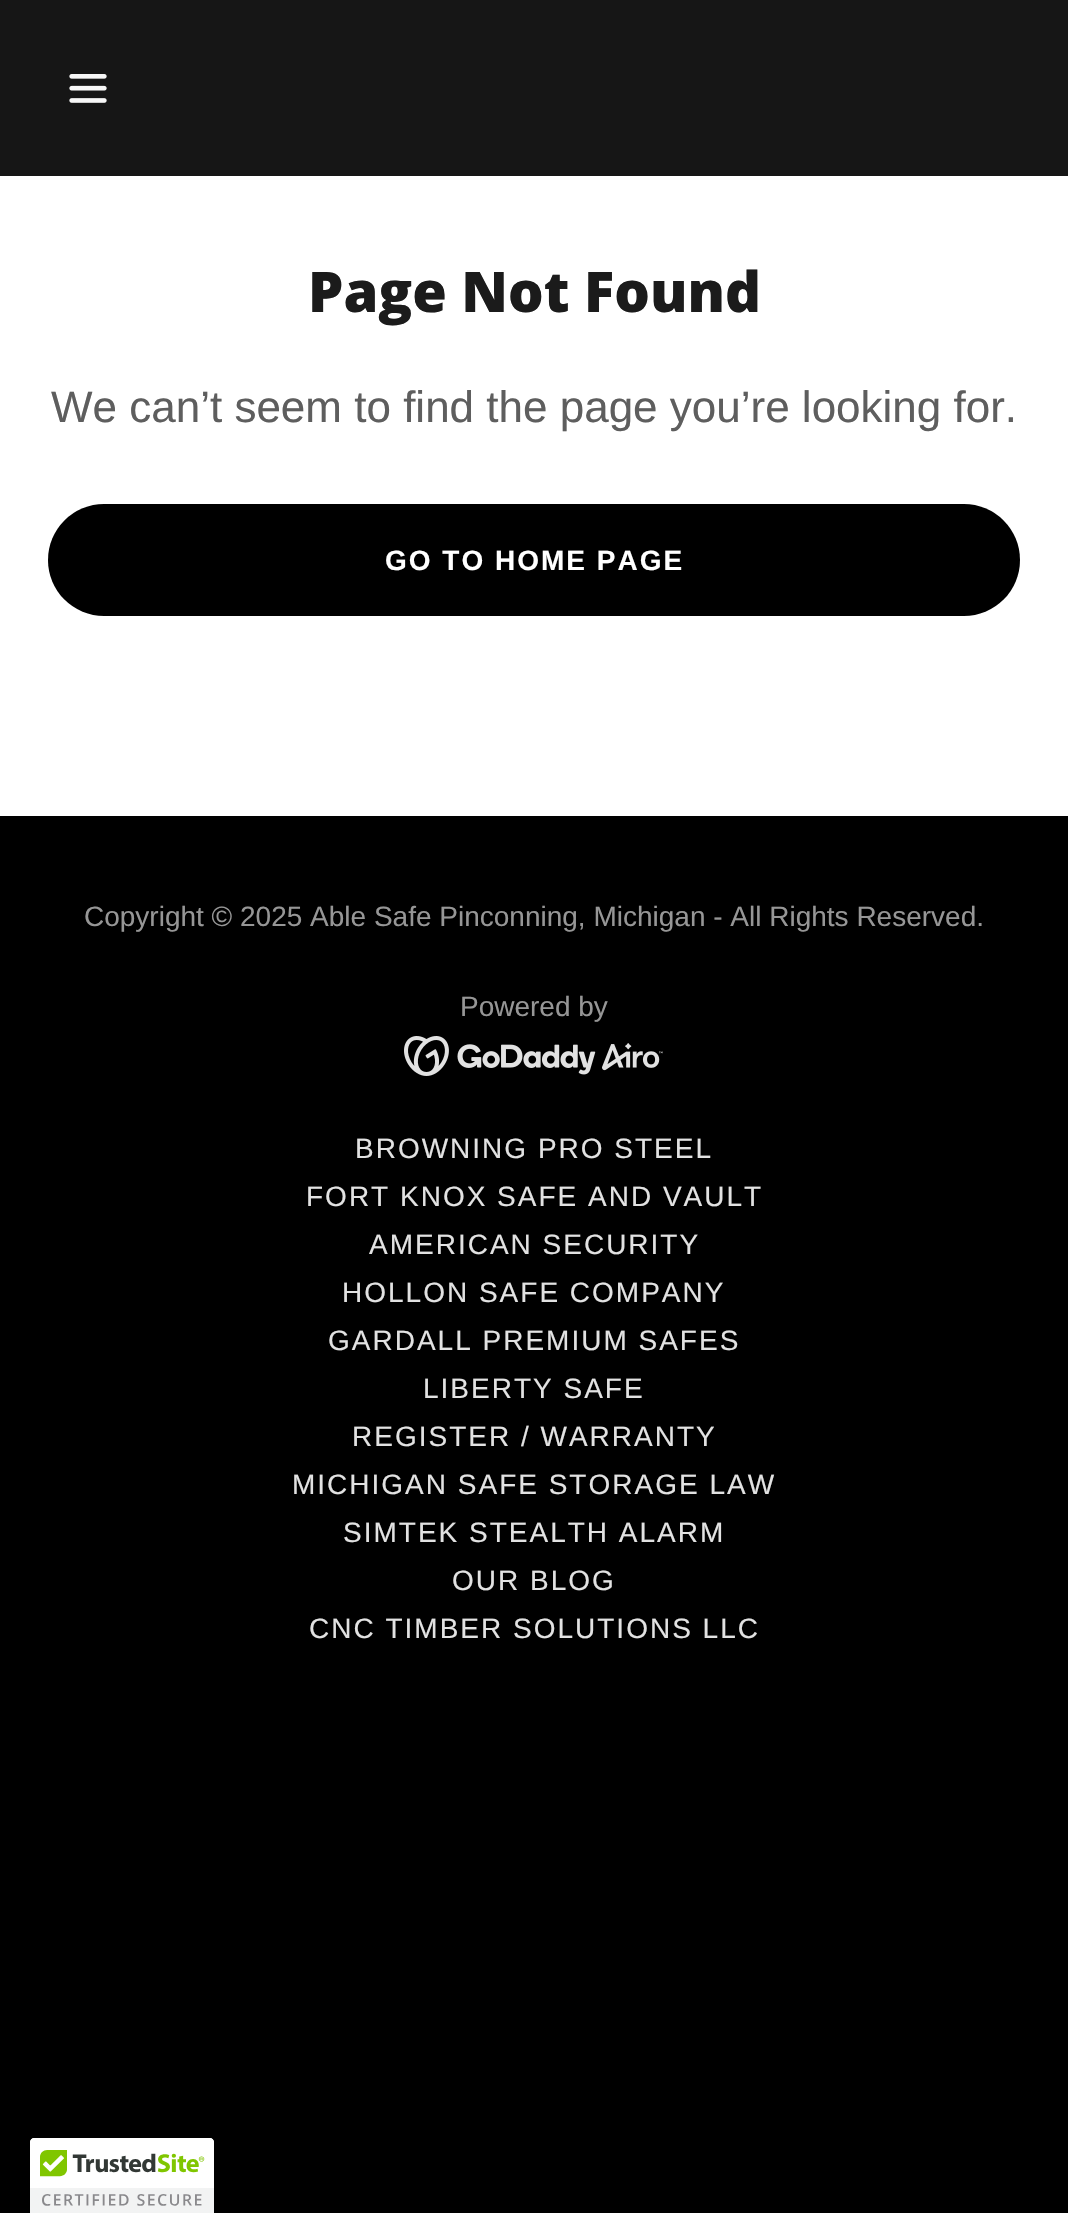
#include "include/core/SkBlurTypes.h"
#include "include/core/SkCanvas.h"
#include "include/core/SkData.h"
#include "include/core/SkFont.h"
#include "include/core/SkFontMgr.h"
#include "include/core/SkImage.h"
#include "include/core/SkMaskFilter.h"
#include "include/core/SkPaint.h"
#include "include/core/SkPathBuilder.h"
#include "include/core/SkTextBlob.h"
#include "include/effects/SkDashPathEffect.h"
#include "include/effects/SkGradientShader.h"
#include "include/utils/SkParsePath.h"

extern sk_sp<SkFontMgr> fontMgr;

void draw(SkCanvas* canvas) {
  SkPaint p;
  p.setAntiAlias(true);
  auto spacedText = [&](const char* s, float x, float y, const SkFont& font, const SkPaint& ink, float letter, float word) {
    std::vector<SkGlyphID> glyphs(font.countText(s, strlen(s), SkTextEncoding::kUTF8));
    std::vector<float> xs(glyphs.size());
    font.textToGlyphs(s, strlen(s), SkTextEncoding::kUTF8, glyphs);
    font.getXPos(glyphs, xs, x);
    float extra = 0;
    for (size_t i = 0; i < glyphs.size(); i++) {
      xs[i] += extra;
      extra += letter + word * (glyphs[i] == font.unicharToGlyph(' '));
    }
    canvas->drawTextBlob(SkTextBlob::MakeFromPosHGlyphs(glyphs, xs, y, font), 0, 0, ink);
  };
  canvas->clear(SK_ColorBLACK);
  p.setColor(SkColorSetRGB(22, 22, 22));
  canvas->drawRect(SkRect::MakeLTRB(0, 0, 1068, 176), p);
  canvas->drawImageRect(SkImages::DeferredFromEncodedData(SkData::MakeFromFileName("images/1.png")), SkRect::MakeLTRB(69, 74, 107, 103), SkSamplingOptions());
  p.setColor(SK_ColorWHITE);
  canvas->drawRect(SkRect::MakeLTRB(0, 176, 1068, 816), p);
  p.setColor(SK_ColorBLACK);
  canvas->drawRoundRect(SkRect::MakeLTRB(48, 504, 1020, 616), 56, 56, p);
  canvas->drawImageRect(SkImages::DeferredFromEncodedData(SkData::MakeFromFileName("images/2.png")), SkRect::MakeLTRB(404, 1036, 663, 1076), SkSamplingOptions());
  p.setColor(SK_ColorWHITE);
  canvas->drawPath(SkPathBuilder().moveTo(34, 2138).lineTo(210, 2138).cubicTo(212, 2138, 214, 2140, 214, 2142).lineTo(214, 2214).lineTo(30, 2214).lineTo(30, 2142).cubicTo(30, 2140, 32, 2138, 34, 2138).close().detach(), p);
  canvas->drawImageRect(SkImages::DeferredFromEncodedData(SkData::MakeFromFileName("images/3.png")), SkRect::MakeLTRB(30, 2138, 214, 2213), SkSamplingOptions());
  SkFont font1(fontMgr->matchFamilyStyle("Open Sans", SkFontStyle(800, SkFontStyle::kNormal_Width, SkFontStyle::kUpright_Slant)), 56);
  font1.setSubpixel(true);
  p.setColor(SkColorSetRGB(27, 27, 27));
  canvas->drawString("Page Not Found", 308, 312, font1, p);
  SkFont font2(fontMgr->matchFamilyStyle("Liberation Sans", SkFontStyle::Normal()), 44);
  font2.setSubpixel(true);
  p.setColor(SkColorSetRGB(94, 94, 94));
  canvas->drawString("We can’t seem to find the page you’re looking for.", 51, 422, font2, p);
  SkFont font3(fontMgr->matchFamilyStyle("Liberation Sans", SkFontStyle::Bold()), 28);
  font3.setSubpixel(true);
  p.setColor(SK_ColorWHITE);
  spacedText("GO TO HOME PAGE", 385, 570, font3, p, 2, 0);
  SkFont font4(fontMgr->matchFamilyStyle("Liberation Sans", SkFontStyle::Normal()), 28);
  font4.setSubpixel(true);
  p.setColor(SkColorSetRGB(150, 150, 150));
  canvas->drawString("Copyright © 2025 Able Safe Pinconning, Michigan - All Rights Reserved.", 84, 926, font4, p);
  canvas->drawString("Powered by", 460, 1016, font4, p);
  p.setColor(SkColorSetRGB(226, 226, 226));
  spacedText("BROWNING PRO STEEL", 355, 1158, font4, p, 2, 0);
  spacedText("FORT KNOX SAFE AND VAULT", 306, 1206, font4, p, 2, 0);
  spacedText("AMERICAN SECURITY", 369, 1254, font4, p, 2, 0);
  spacedText("HOLLON SAFE COMPANY", 342, 1302, font4, p, 2, 0);
  spacedText("GARDALL PREMIUM SAFES", 328, 1350, font4, p, 2, 0);
  spacedText("LIBERTY SAFE", 423, 1398, font4, p, 2, 0);
  spacedText("REGISTER / WARRANTY", 352, 1446, font4, p, 2, 0);
  spacedText("MICHIGAN SAFE STORAGE LAW", 292, 1494, font4, p, 2, 0);
  spacedText("SIMTEK STEALTH ALARM", 343, 1542, font4, p, 2, 0);
  spacedText("OUR BLOG", 452, 1590, font4, p, 2, 0);
  spacedText("CNC TIMBER SOLUTIONS LLC", 309, 1638, font4, p, 2, 0);
}
